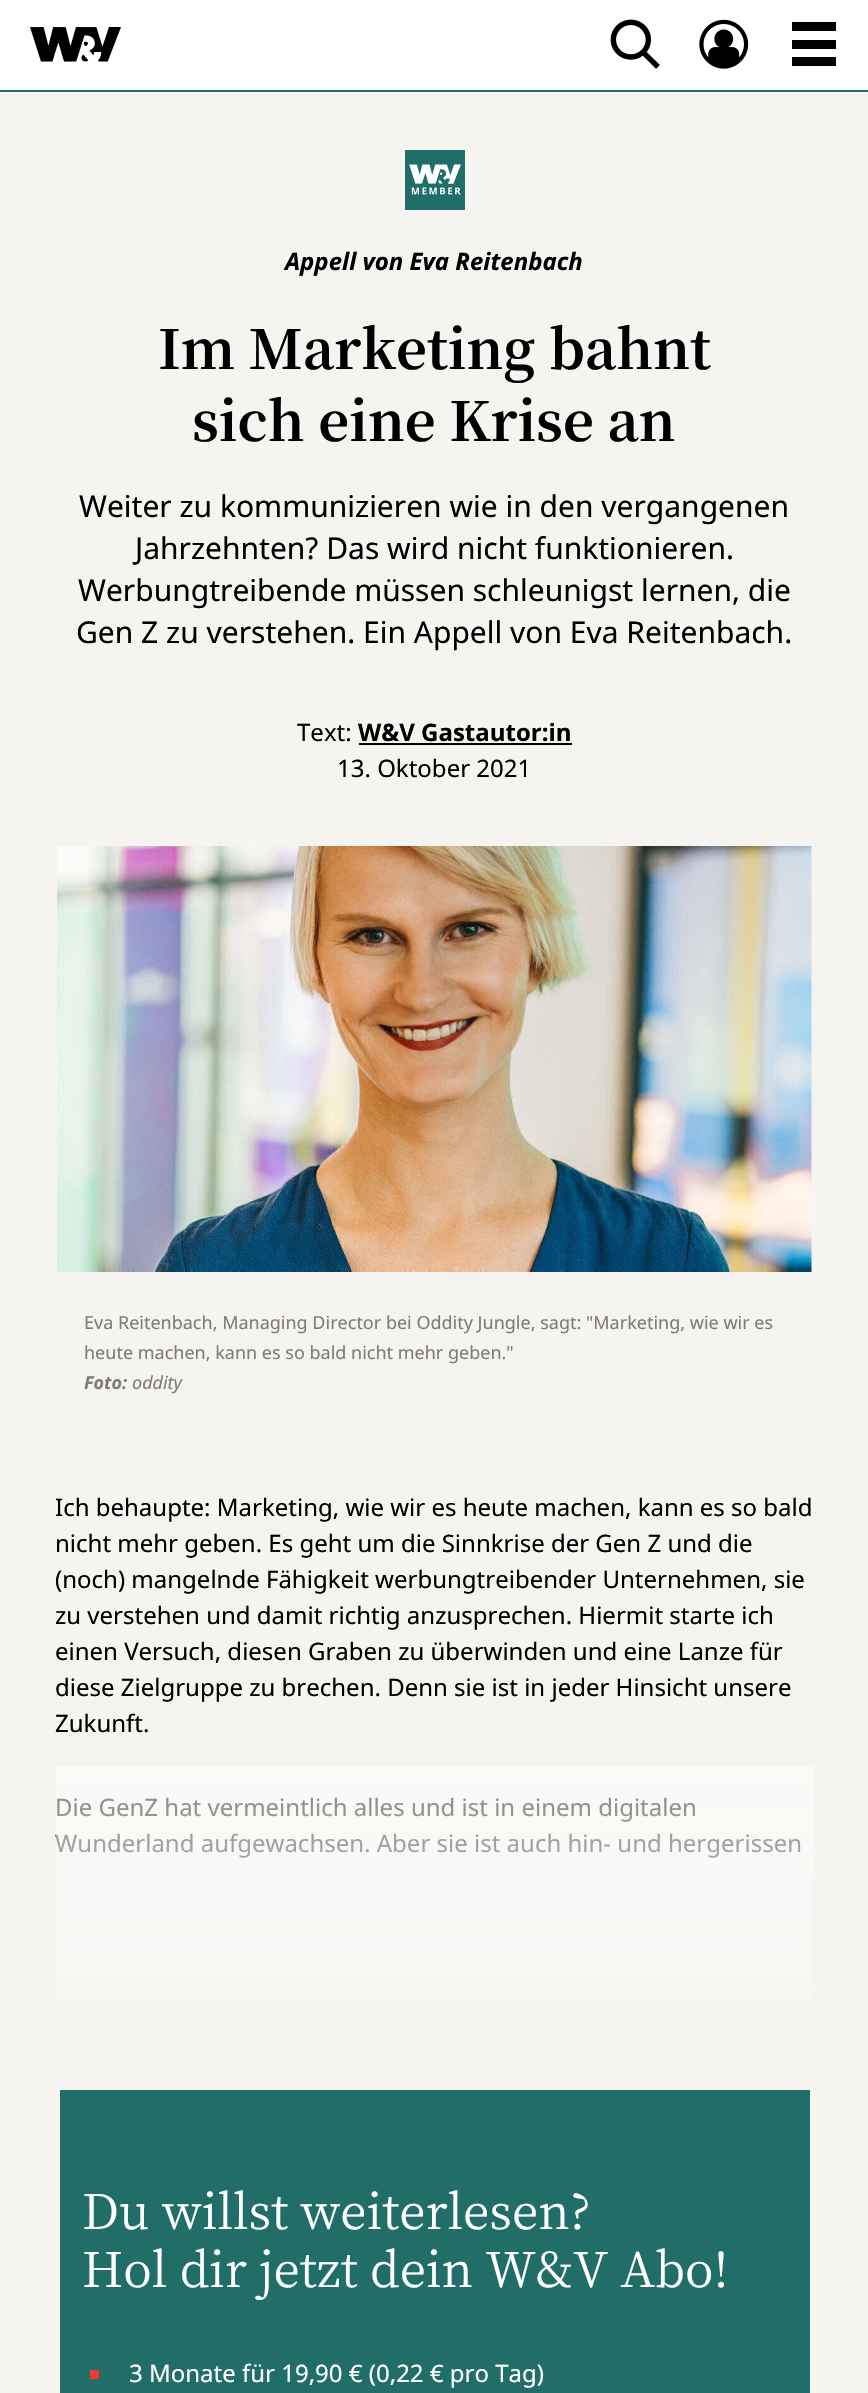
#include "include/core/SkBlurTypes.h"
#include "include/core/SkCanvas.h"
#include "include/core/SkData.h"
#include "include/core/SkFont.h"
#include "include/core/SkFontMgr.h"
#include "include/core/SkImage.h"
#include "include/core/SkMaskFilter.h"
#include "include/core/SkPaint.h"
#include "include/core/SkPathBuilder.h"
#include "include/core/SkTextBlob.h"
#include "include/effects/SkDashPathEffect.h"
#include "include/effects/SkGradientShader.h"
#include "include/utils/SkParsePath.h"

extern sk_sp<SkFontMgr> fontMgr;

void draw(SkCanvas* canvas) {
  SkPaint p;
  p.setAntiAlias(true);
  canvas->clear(SkColorSetRGB(245, 244, 240));
  p.setColor(SK_ColorWHITE);
  canvas->drawRect(SkRect::MakeLTRB(0, 0, 868, 90), p);
  p.setColor(SkColorSetRGB(33, 109, 103));
  canvas->drawRect(SkRect::MakeLTRB(0, 90, 868, 92), p);
  canvas->drawImageRect(SkImages::DeferredFromEncodedData(SkData::MakeFromFileName("images/1.png")), SkRect::MakeLTRB(30, 27, 121, 62), SkSamplingOptions());
  canvas->drawImageRect(SkImages::DeferredFromEncodedData(SkData::MakeFromFileName("images/2.png")), SkRect::MakeLTRB(610, 19, 660, 69), SkSamplingOptions());
  canvas->drawImageRect(SkImages::DeferredFromEncodedData(SkData::MakeFromFileName("images/3.png")), SkRect::MakeLTRB(699, 19, 749, 69), SkSamplingOptions());
  p.setColor(SK_ColorBLACK);
  canvas->drawPath(SkPathBuilder().moveTo(792, 31).lineTo(836, 31).lineTo(836, 22).lineTo(792, 22).close().moveTo(792, 49).lineTo(836, 49).lineTo(836, 40).lineTo(792, 40).close().moveTo(836, 57).lineTo(792, 57).lineTo(792, 66).lineTo(836, 66).close().detach(), p);
  canvas->drawImageRect(SkImages::DeferredFromEncodedData(SkData::MakeFromFileName("images/4.png")), SkRect::MakeLTRB(405, 150, 465, 210), SkSamplingOptions());
  canvas->drawRect(SkRect::MakeLTRB(359, 743, 572, 745), p);
  canvas->drawImageRect(SkImages::DeferredFromEncodedData(SkData::MakeFromFileName("images/5.png")), SkRect::MakeLTRB(57, 846, 812, 1272), SkSamplingOptions());
  p.setColor(SkColorSetRGB(33, 109, 103));
  canvas->drawRect(SkRect::MakeLTRB(60, 2090, 810, 2393), p);
  p.setColor(SkColorSetRGB(246, 54, 53));
  canvas->drawRect(SkRect::MakeLTRB(90, 2370, 99, 2379), p);
  SkFont font1(fontMgr->matchFamilyStyle("Noto Sans", SkFontStyle::BoldItalic()), 24);
  font1.setSubpixel(true);
  p.setColor(SK_ColorBLACK);
  canvas->drawString("Appell von Eva Reitenbach", 285, 270, font1, p);
  SkFont font2(fontMgr->matchFamilyStyle("Noto Serif JP", SkFontStyle::Bold()), 54);
  font2.setSubpixel(true);
  canvas->drawString("Im Marketing bahnt", 158, 369, font2, p);
  canvas->drawString("sich eine Krise an", 192, 441, font2, p);
  SkFont font3(fontMgr->matchFamilyStyle("Noto Sans", SkFontStyle::Normal()), 30);
  font3.setSubpixel(true);
  canvas->drawString("Weiter zu kommunizieren wie in den vergangenen", 79, 517, font3, p);
  canvas->drawString("Jahrzehnten? Das wird nicht funktionieren.", 135, 559, font3, p);
  canvas->drawString("Werbungtreibende müssen schleunigst lernen, die", 78, 601, font3, p);
  canvas->drawString("Gen Z zu verstehen. Ein Appell von Eva Reitenbach.", 76, 643, font3, p);
  SkFont font4(fontMgr->matchFamilyStyle("Noto Sans", SkFontStyle::Normal()), 24);
  font4.setSubpixel(true);
  canvas->drawString("Text:", 297, 741, font4, p);
  SkFont font5(fontMgr->matchFamilyStyle("Noto Sans", SkFontStyle::Bold()), 24);
  font5.setSubpixel(true);
  canvas->drawString("W&V Gastautor:in", 358, 741, font5, p);
  canvas->drawString("13. Oktober 2021", 337, 777, font4, p);
  SkFont font6(fontMgr->matchFamilyStyle("Noto Sans", SkFontStyle::Normal()), 18);
  font6.setSubpixel(true);
  p.setColor(SkColorSetRGB(127, 123, 117));
  canvas->drawString("Eva Reitenbach, Managing Director bei Oddity Jungle, sagt: \"Marketing, wie wir es", 84, 1329, font6, p);
  canvas->drawString("heute machen, kann es so bald nicht mehr geben.\"", 84, 1359, font6, p);
  SkFont font7(fontMgr->matchFamilyStyle("Noto Sans", SkFontStyle::BoldItalic()), 18);
  font7.setSubpixel(true);
  canvas->drawString("Foto:", 84, 1389, font7, p);
  SkFont font8(fontMgr->matchFamilyStyle("Noto Sans", SkFontStyle::Italic()), 18);
  font8.setSubpixel(true);
  canvas->drawString("oddity", 132, 1389, font8, p);
  p.setColor(SK_ColorBLACK);
  canvas->drawString("Ich behaupte: Marketing, wie wir es heute machen, kann es so bald", 55, 1516, font4, p);
  canvas->drawString("nicht mehr geben. Es geht um die Sinnkrise der Gen Z und die", 55, 1552, font4, p);
  canvas->drawString("(noch) mangelnde Fähigkeit werbungtreibender Unternehmen, sie", 55, 1588, font4, p);
  canvas->drawString("zu verstehen und damit richtig anzusprechen. Hiermit starte ich", 55, 1624, font4, p);
  canvas->drawString("einen Versuch, diesen Graben zu überwinden und eine Lanze für", 55, 1660, font4, p);
  canvas->drawString("diese Zielgruppe zu brechen. Denn sie ist in jeder Hinsicht unsere", 55, 1696, font4, p);
  canvas->drawString("Zukunft.", 55, 1732, font4, p);
  canvas->drawString("Die GenZ hat vermeintlich alles und ist in einem digitalen", 55, 1816, font4, p);
  canvas->drawString("Wunderland aufgewachsen. Aber sie ist auch hin- und hergerissen", 55, 1852, font4, p);
  {
    const SkColor colors[] = {SkColorSetARGB(128, 255, 255, 255), SkColorSetRGB(245, 244, 240)};
    const float stops[] = {0, 1};
    const SkPoint ends[] = {{434, 1766}, {434, 2042}};
    p.setShader(SkGradientShader::MakeLinear(ends, colors, stops, 2, SkTileMode::kClamp));
    p.setAlpha(255);
  }
  canvas->drawRect(SkRect::MakeLTRB(56, 1766, 813, 2000), p);
  SkFont font9(fontMgr->matchFamilyStyle("Noto Serif JP", SkFontStyle::Normal()), 48);
  font9.setSubpixel(true);
  p.setShader(nullptr);
  p.setColor(SK_ColorWHITE);
  canvas->drawString("Du willst weiterlesen?", 82, 2229, font9, p);
  canvas->drawString("Hol dir jetzt dein W&V Abo!", 82, 2287, font9, p);
  canvas->drawString("3 Monate für 19,90 € (0,22 € pro Tag)", 129, 2382, font4, p);
}
